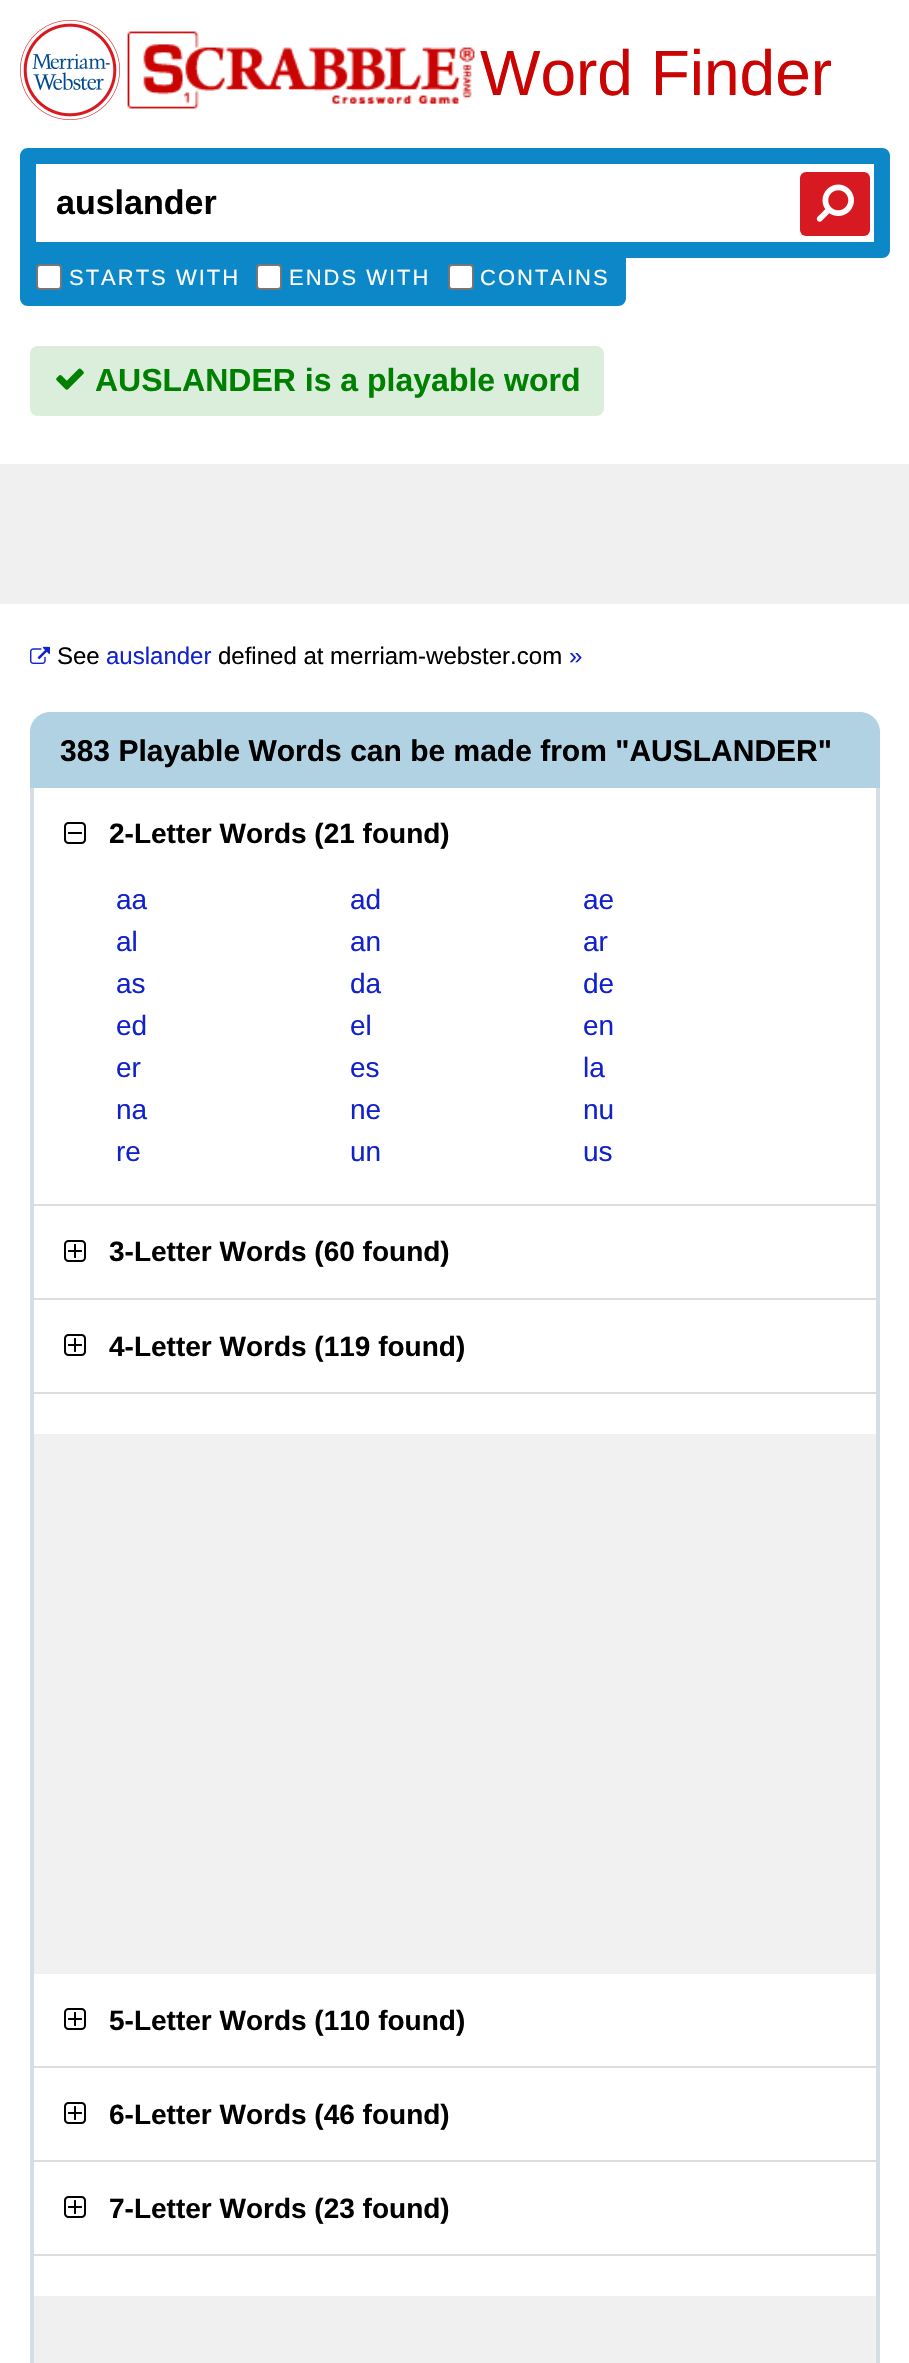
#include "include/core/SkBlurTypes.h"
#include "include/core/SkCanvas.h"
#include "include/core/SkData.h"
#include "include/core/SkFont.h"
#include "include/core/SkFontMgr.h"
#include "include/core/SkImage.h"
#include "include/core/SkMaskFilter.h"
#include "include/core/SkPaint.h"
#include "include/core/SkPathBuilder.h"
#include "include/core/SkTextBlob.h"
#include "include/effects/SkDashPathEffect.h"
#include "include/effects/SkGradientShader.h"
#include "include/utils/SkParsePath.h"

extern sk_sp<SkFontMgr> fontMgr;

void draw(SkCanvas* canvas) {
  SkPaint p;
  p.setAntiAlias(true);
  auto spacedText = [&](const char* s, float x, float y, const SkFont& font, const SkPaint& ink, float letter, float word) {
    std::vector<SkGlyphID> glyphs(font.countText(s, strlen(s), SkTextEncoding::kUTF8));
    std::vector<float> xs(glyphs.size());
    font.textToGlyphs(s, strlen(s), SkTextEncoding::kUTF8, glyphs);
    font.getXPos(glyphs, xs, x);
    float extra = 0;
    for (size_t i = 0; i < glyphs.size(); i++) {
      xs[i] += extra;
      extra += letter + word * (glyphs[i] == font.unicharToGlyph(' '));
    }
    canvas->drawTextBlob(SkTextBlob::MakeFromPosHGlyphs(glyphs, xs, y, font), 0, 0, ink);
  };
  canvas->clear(SK_ColorWHITE);
  canvas->drawImageRect(SkImages::DeferredFromEncodedData(SkData::MakeFromFileName("images/1.png")), SkRect::MakeLTRB(20, 20, 120, 120), SkSamplingOptions());
  canvas->drawImageRect(SkImages::DeferredFromEncodedData(SkData::MakeFromFileName("images/2.png")), SkRect::MakeLTRB(127, 31, 475, 109), SkSamplingOptions());
  p.setColor(SkColorSetRGB(12, 136, 200));
  canvas->drawPath(SkPathBuilder().moveTo(28, 148).lineTo(882, 148).cubicTo(886.5f, 148, 890, 151.5f, 890, 156).lineTo(890, 250).cubicTo(890, 254.5f, 886.5f, 258, 882, 258).lineTo(20, 258).lineTo(20, 156).cubicTo(20, 151.5f, 23.5f, 148, 28, 148).close().detach(), p);
  p.setColor(SK_ColorWHITE);
  canvas->drawRect(SkRect::MakeLTRB(36, 164, 874, 242), p);
  p.setColor(SkColorSetRGB(215, 26, 33));
  canvas->drawRoundRect(SkRect::MakeLTRB(800, 172, 870, 236), 6, 6, p);
  canvas->drawImageRect(SkImages::DeferredFromEncodedData(SkData::MakeFromFileName("images/3.png")), SkRect::MakeLTRB(816, 184, 854, 222), SkSamplingOptions());
  p.setColor(SkColorSetRGB(12, 136, 200));
  canvas->drawPath(SkPathBuilder().moveTo(20, 258).lineTo(626, 258).lineTo(626, 298).cubicTo(626, 302.5f, 622.5f, 306, 618, 306).lineTo(28, 306).cubicTo(23.5f, 306, 20, 302.5f, 20, 298).close().detach(), p);
  p.setColor(SK_ColorWHITE);
  canvas->drawRoundRect(SkRect::MakeLTRB(37, 265, 61, 289), 3, 3, p);
  p.setStyle(SkPaint::kStroke_Style);
  p.setStrokeWidth(2);
  p.setColor(SkColorSetRGB(118, 118, 118));
  canvas->drawRoundRect(SkRect::MakeLTRB(37, 265, 61, 289), 3, 3, p);
  p.setStyle(SkPaint::kFill_Style);
  p.setColor(SK_ColorWHITE);
  canvas->drawRoundRect(SkRect::MakeLTRB(257, 265, 281, 289), 3, 3, p);
  p.setStyle(SkPaint::kStroke_Style);
  p.setColor(SkColorSetRGB(118, 118, 118));
  canvas->drawRoundRect(SkRect::MakeLTRB(257, 265, 281, 289), 3, 3, p);
  p.setStyle(SkPaint::kFill_Style);
  p.setColor(SK_ColorWHITE);
  canvas->drawRoundRect(SkRect::MakeLTRB(449, 265, 473, 289), 3, 3, p);
  p.setStyle(SkPaint::kStroke_Style);
  p.setColor(SkColorSetRGB(118, 118, 118));
  canvas->drawRoundRect(SkRect::MakeLTRB(449, 265, 473, 289), 3, 3, p);
  p.setStyle(SkPaint::kFill_Style);
  p.setColor(SkColorSetRGB(219, 237, 219));
  canvas->drawRoundRect(SkRect::MakeLTRB(30, 346, 604, 416), 8, 8, p);
  canvas->drawImageRect(SkImages::DeferredFromEncodedData(SkData::MakeFromFileName("images/4.png")), SkRect::MakeLTRB(56, 368, 84, 390), SkSamplingOptions());
  p.setColor(SkColorSetRGB(240, 240, 240));
  canvas->drawRect(SkRect::MakeLTRB(0, 464, 909, 604), p);
  canvas->drawImageRect(SkImages::DeferredFromEncodedData(SkData::MakeFromFileName("images/5.png")), SkRect::MakeLTRB(30, 646, 50, 664), SkSamplingOptions());
  p.setColor(SkColorSetRGB(176, 210, 227));
  canvas->drawPath(SkPathBuilder().moveTo(50, 712).lineTo(860, 712).cubicTo(871, 712, 880, 721, 880, 732).lineTo(880, 788).lineTo(30, 788).lineTo(30, 732).cubicTo(30, 721, 39, 712, 50, 712).close().detach(), p);
  p.setColor(SkColorSetRGB(213, 222, 227));
  canvas->drawPath(SkPathBuilder(SkPathFillType::kEvenOdd).moveTo(30, 788).lineTo(880, 788).lineTo(880, 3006).cubicTo(880, 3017, 871, 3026, 860, 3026).lineTo(50, 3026).cubicTo(39, 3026, 30, 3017, 30, 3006).close().moveTo(34, 788).lineTo(876, 788).lineTo(876, 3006).cubicTo(876, 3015, 869, 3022, 860, 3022).lineTo(50, 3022).cubicTo(41, 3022, 34, 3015, 34, 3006).close().detach(), p);
  p.setColor(SkColorSetRGB(221, 221, 221));
  canvas->drawRect(SkRect::MakeLTRB(34, 1204, 876, 1206), p);
  canvas->drawImageRect(SkImages::DeferredFromEncodedData(SkData::MakeFromFileName("images/6.png")), SkRect::MakeLTRB(64, 822, 86, 844), SkSamplingOptions());
  canvas->drawRect(SkRect::MakeLTRB(34, 1298, 876, 1300), p);
  canvas->drawImageRect(SkImages::DeferredFromEncodedData(SkData::MakeFromFileName("images/7.png")), SkRect::MakeLTRB(64, 1240, 86, 1262), SkSamplingOptions());
  canvas->drawRect(SkRect::MakeLTRB(34, 1392, 876, 1394), p);
  canvas->drawImageRect(SkImages::DeferredFromEncodedData(SkData::MakeFromFileName("images/7.png")), SkRect::MakeLTRB(64, 1334, 86, 1356), SkSamplingOptions());
  p.setColor(SkColorSetRGB(241, 241, 241));
  canvas->drawRect(SkRect::MakeLTRB(34, 1434, 876, 1974), p);
  p.setColor(SkColorSetRGB(221, 221, 221));
  canvas->drawRect(SkRect::MakeLTRB(34, 2066, 876, 2068), p);
  canvas->drawImageRect(SkImages::DeferredFromEncodedData(SkData::MakeFromFileName("images/7.png")), SkRect::MakeLTRB(64, 2008, 86, 2030), SkSamplingOptions());
  canvas->drawRect(SkRect::MakeLTRB(34, 2160, 876, 2162), p);
  canvas->drawImageRect(SkImages::DeferredFromEncodedData(SkData::MakeFromFileName("images/7.png")), SkRect::MakeLTRB(64, 2102, 86, 2124), SkSamplingOptions());
  canvas->drawRect(SkRect::MakeLTRB(34, 2254, 876, 2256), p);
  canvas->drawImageRect(SkImages::DeferredFromEncodedData(SkData::MakeFromFileName("images/7.png")), SkRect::MakeLTRB(64, 2196, 86, 2218), SkSamplingOptions());
  p.setColor(SkColorSetRGB(240, 240, 240));
  canvas->drawRect(SkRect::MakeLTRB(34, 2296, 876, 2363), p);
  SkFont font1(fontMgr->matchFamilyStyle("Liberation Sans", SkFontStyle::Normal()), 64);
  font1.setSubpixel(true);
  p.setColor(SkColorSetRGB(202, 4, 3));
  canvas->drawString("Word Finder", 480, 95, font1, p);
  SkFont font2(fontMgr->matchFamilyStyle("Liberation Sans", SkFontStyle::Bold()), 34);
  font2.setSubpixel(true);
  p.setColor(SK_ColorBLACK);
  canvas->drawString("auslander", 56, 214, font2, p);
  SkFont font3(fontMgr->matchFamilyStyle("Liberation Sans", SkFontStyle::Normal()), 22);
  font3.setSubpixel(true);
  p.setColor(SK_ColorWHITE);
  spacedText("STARTS WITH", 69, 285, font3, p, 2, 0);
  spacedText("ENDS WITH", 289, 285, font3, p, 2, 0);
  spacedText("CONTAINS", 480, 285, font3, p, 2, 0);
  SkFont font4(fontMgr->matchFamilyStyle("Liberation Sans", SkFontStyle::Bold()), 32);
  font4.setSubpixel(true);
  p.setColor(SkColorSetRGB(0, 128, 0));
  canvas->drawString("AUSLANDER is a playable word", 95, 391, font4, p);
  SkFont font5(fontMgr->matchFamilyStyle("Liberation Sans", SkFontStyle::Normal()), 24);
  font5.setSubpixel(true);
  p.setColor(SK_ColorBLACK);
  canvas->drawString("See", 57, 664, font5, p);
  p.setColor(SkColorSetRGB(17, 34, 204));
  canvas->drawString("auslander", 106, 664, font5, p);
  p.setColor(SK_ColorBLACK);
  canvas->drawString("defined at merriam-webster.com", 218, 664, font5, p);
  p.setColor(SkColorSetRGB(17, 34, 204));
  canvas->drawString("»", 569, 664, font5, p);
  SkFont font6(fontMgr->matchFamilyStyle("Liberation Sans", SkFontStyle::Bold()), 30);
  font6.setSubpixel(true);
  p.setColor(SK_ColorBLACK);
  canvas->drawString("383 Playable Words can be made from \"AUSLANDER\"", 60, 761, font6, p);
  SkFont font7(fontMgr->matchFamilyStyle("Liberation Sans", SkFontStyle::Bold()), 28);
  font7.setSubpixel(true);
  canvas->drawString("2-Letter Words (21 found)", 109, 843, font7, p);
  SkFont font8(fontMgr->matchFamilyStyle("Liberation Sans", SkFontStyle::Normal()), 28);
  font8.setSubpixel(true);
  p.setColor(SkColorSetRGB(17, 34, 204));
  canvas->drawString("aa", 116, 909, font8, p);
  canvas->drawString("ad", 350, 909, font8, p);
  canvas->drawString("ae", 583, 909, font8, p);
  canvas->drawString("al", 116, 951, font8, p);
  canvas->drawString("an", 350, 951, font8, p);
  canvas->drawString("ar", 583, 951, font8, p);
  canvas->drawString("as", 116, 993, font8, p);
  canvas->drawString("da", 350, 993, font8, p);
  canvas->drawString("de", 583, 993, font8, p);
  canvas->drawString("ed", 116, 1035, font8, p);
  canvas->drawString("el", 350, 1035, font8, p);
  canvas->drawString("en", 583, 1035, font8, p);
  canvas->drawString("er", 116, 1077, font8, p);
  canvas->drawString("es", 350, 1077, font8, p);
  canvas->drawString("la", 583, 1077, font8, p);
  canvas->drawString("na", 116, 1119, font8, p);
  canvas->drawString("ne", 350, 1119, font8, p);
  canvas->drawString("nu", 583, 1119, font8, p);
  canvas->drawString("re", 116, 1161, font8, p);
  canvas->drawString("un", 350, 1161, font8, p);
  canvas->drawString("us", 583, 1161, font8, p);
  p.setColor(SK_ColorBLACK);
  canvas->drawString("3-Letter Words (60 found)", 109, 1261, font7, p);
  canvas->drawString("4-Letter Words (119 found)", 109, 1356, font7, p);
  canvas->drawString("5-Letter Words (110 found)", 109, 2030, font7, p);
  canvas->drawString("6-Letter Words (46 found)", 109, 2124, font7, p);
  canvas->drawString("7-Letter Words (23 found)", 109, 2218, font7, p);
}
